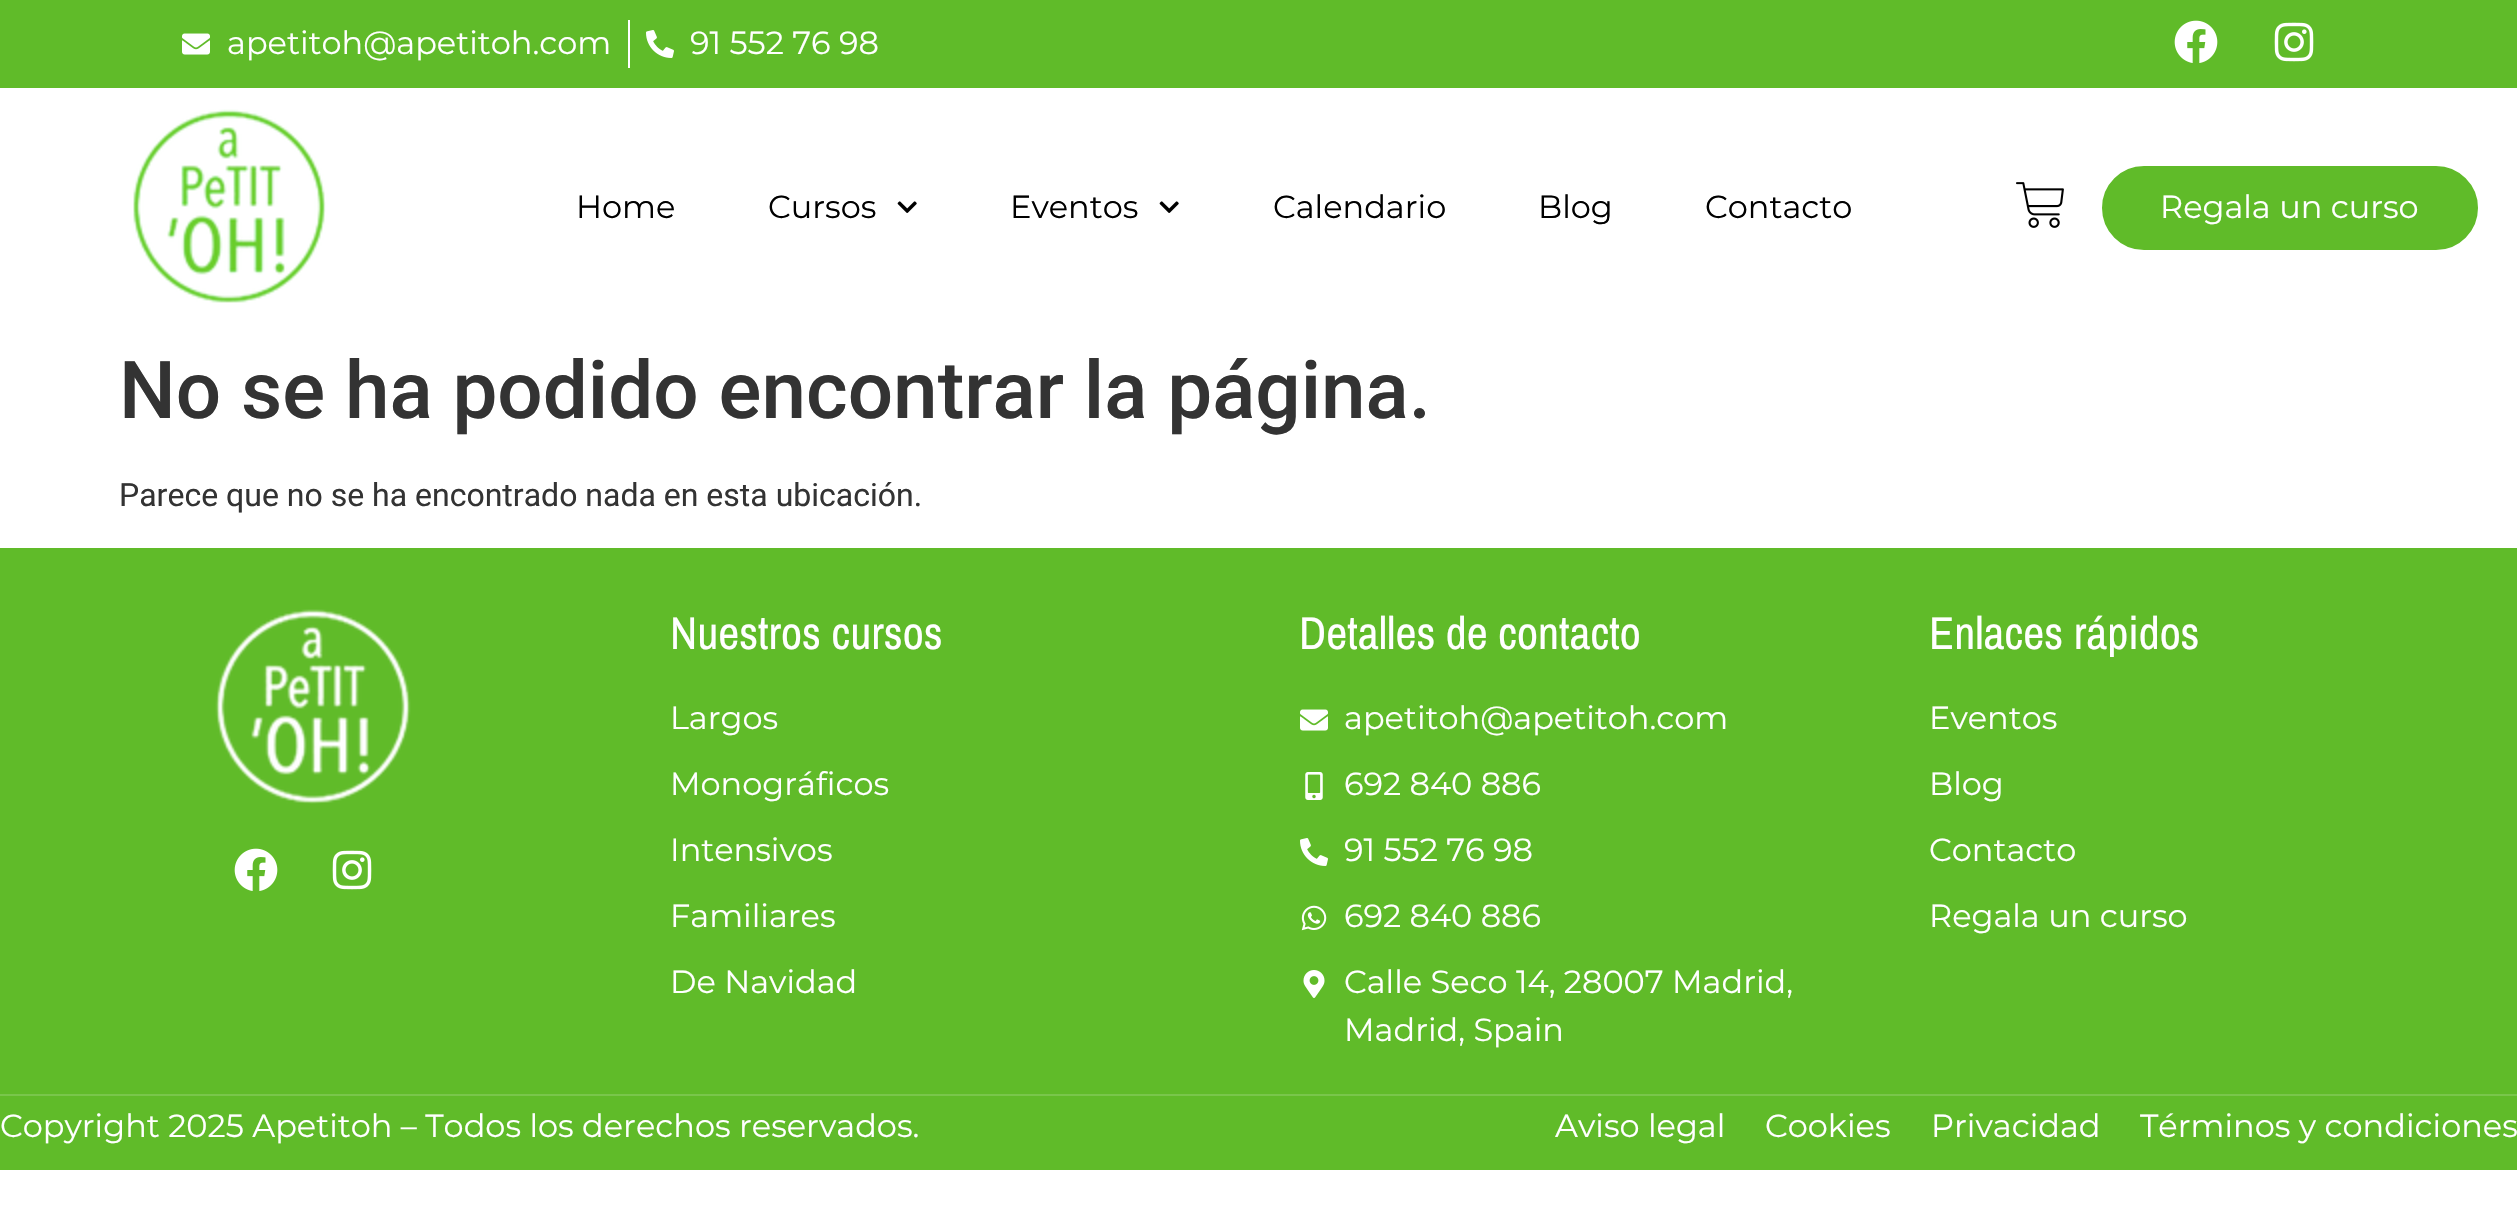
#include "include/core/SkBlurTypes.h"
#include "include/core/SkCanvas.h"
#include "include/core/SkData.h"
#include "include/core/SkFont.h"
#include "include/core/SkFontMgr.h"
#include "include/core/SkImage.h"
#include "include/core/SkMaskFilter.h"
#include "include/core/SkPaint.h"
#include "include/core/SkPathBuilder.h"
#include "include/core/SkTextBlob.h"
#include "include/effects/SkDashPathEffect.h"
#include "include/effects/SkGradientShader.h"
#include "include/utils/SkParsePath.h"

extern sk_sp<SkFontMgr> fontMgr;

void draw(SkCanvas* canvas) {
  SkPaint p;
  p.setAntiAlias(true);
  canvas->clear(SK_ColorWHITE);
  p.setColor(SkColorSetRGB(96, 187, 41));
  canvas->drawRect(SkRect::MakeLTRB(0, 0, 2517, 88), p);
  canvas->drawImageRect(SkImages::DeferredFromEncodedData(SkData::MakeFromFileName("images/1.png")), SkRect::MakeLTRB(182, 33, 210, 55), SkSamplingOptions());
  p.setColor(SK_ColorWHITE);
  canvas->drawRect(SkRect::MakeLTRB(628, 20, 630, 68), p);
  canvas->drawImageRect(SkImages::DeferredFromEncodedData(SkData::MakeFromFileName("images/2.png")), SkRect::MakeLTRB(646, 30, 674, 58), SkSamplingOptions());
  canvas->drawImageRect(SkImages::DeferredFromEncodedData(SkData::MakeFromFileName("images/3.png")), SkRect::MakeLTRB(2174, 20, 2218, 63), SkSamplingOptions());
  canvas->drawImageRect(SkImages::DeferredFromEncodedData(SkData::MakeFromFileName("images/4.png")), SkRect::MakeLTRB(2274, 22, 2314, 62), SkSamplingOptions());
  canvas->drawImageRect(SkImages::DeferredFromEncodedData(SkData::MakeFromFileName("images/5.png")), SkRect::MakeLTRB(133, 109, 326, 303), SkSamplingOptions());
  canvas->drawImageRect(SkImages::DeferredFromEncodedData(SkData::MakeFromFileName("images/6.png")), SkRect::MakeLTRB(897, 201, 917, 213), SkSamplingOptions());
  canvas->drawImageRect(SkImages::DeferredFromEncodedData(SkData::MakeFromFileName("images/6.png")), SkRect::MakeLTRB(1159, 201, 1179, 213), SkSamplingOptions());
  canvas->drawImageRect(SkImages::DeferredFromEncodedData(SkData::MakeFromFileName("images/7.png")), SkRect::MakeLTRB(2016, 182, 2064, 228), SkSamplingOptions());
  p.setColor(SkColorSetRGB(96, 187, 41));
  canvas->drawRoundRect(SkRect::MakeLTRB(2103, 167, 2477, 249), 41, 41, p);
  p.setStyle(SkPaint::kStroke_Style);
  p.setStrokeWidth(2);
  canvas->drawRoundRect(SkRect::MakeLTRB(2103, 167, 2477, 249), 41, 41, p);
  p.setStyle(SkPaint::kFill_Style);
  canvas->drawRect(SkRect::MakeLTRB(0, 548, 2517, 1170), p);
  canvas->drawImageRect(SkImages::DeferredFromEncodedData(SkData::MakeFromFileName("images/8.png")), SkRect::MakeLTRB(215, 609, 411, 804), SkSamplingOptions());
  canvas->drawImageRect(SkImages::DeferredFromEncodedData(SkData::MakeFromFileName("images/3.png")), SkRect::MakeLTRB(234, 848, 278, 891), SkSamplingOptions());
  canvas->drawImageRect(SkImages::DeferredFromEncodedData(SkData::MakeFromFileName("images/4.png")), SkRect::MakeLTRB(332, 850, 372, 890), SkSamplingOptions());
  canvas->drawImageRect(SkImages::DeferredFromEncodedData(SkData::MakeFromFileName("images/1.png")), SkRect::MakeLTRB(1300, 709, 1328, 731), SkSamplingOptions());
  canvas->drawImageRect(SkImages::DeferredFromEncodedData(SkData::MakeFromFileName("images/9.png")), SkRect::MakeLTRB(1305, 772, 1323, 800), SkSamplingOptions());
  canvas->drawImageRect(SkImages::DeferredFromEncodedData(SkData::MakeFromFileName("images/2.png")), SkRect::MakeLTRB(1300, 838, 1328, 866), SkSamplingOptions());
  canvas->drawImageRect(SkImages::DeferredFromEncodedData(SkData::MakeFromFileName("images/10.png")), SkRect::MakeLTRB(1301, 905, 1327, 931), SkSamplingOptions());
  canvas->drawImageRect(SkImages::DeferredFromEncodedData(SkData::MakeFromFileName("images/11.png")), SkRect::MakeLTRB(1303, 970, 1325, 998), SkSamplingOptions());
  p.setColor(SkColorSetRGB(121, 198, 75));
  canvas->drawRect(SkRect::MakeLTRB(0, 1094, 2517, 1096), p);
  SkFont font1(fontMgr->matchFamilyStyle("Montserrat", SkFontStyle::Normal()), 32);
  font1.setSubpixel(true);
  p.setColor(SK_ColorWHITE);
  canvas->drawString("apetitoh@apetitoh.com", 227, 54, font1, p);
  canvas->drawString("91 552 76 98", 690, 54, font1, p);
  p.setColor(SK_ColorBLACK);
  canvas->drawString("Home", 576, 218, font1, p);
  canvas->drawString("Cursos", 768, 218, font1, p);
  canvas->drawString("Eventos", 1010, 218, font1, p);
  canvas->drawString("Calendario", 1273, 218, font1, p);
  canvas->drawString("Blog", 1538, 218, font1, p);
  canvas->drawString("Contacto", 1705, 218, font1, p);
  p.setColor(SK_ColorWHITE);
  canvas->drawString("Regala un curso", 2160, 218, font1, p);
  SkFont font2(fontMgr->matchFamilyStyle("Roboto", SkFontStyle(500, SkFontStyle::kNormal_Width, SkFontStyle::kUpright_Slant)), 80);
  font2.setSubpixel(true);
  p.setColor(SkColorSetRGB(51, 51, 51));
  canvas->drawString("No se ha podido encontrar la página.", 119, 418, font2, p);
  SkFont font3(fontMgr->matchFamilyStyle("Roboto", SkFontStyle::Normal()), 32);
  font3.setSubpixel(true);
  canvas->drawString("Parece que no se ha encontrado nada en esta ubicación.", 119, 506, font3, p);
  SkFont font4(fontMgr->matchFamilyStyle("Archivo Narrow", SkFontStyle::Normal()), 46);
  font4.setSubpixel(true);
  p.setColor(SK_ColorWHITE);
  canvas->drawString("Nuestros cursos", 670, 649, font4, p);
  canvas->drawString("Largos", 670, 729, font1, p);
  canvas->drawString("Monográficos", 670, 795, font1, p);
  canvas->drawString("Intensivos", 670, 861, font1, p);
  canvas->drawString("Familiares", 670, 927, font1, p);
  canvas->drawString("De Navidad", 670, 993, font1, p);
  canvas->drawString("Detalles de contacto", 1299, 649, font4, p);
  canvas->drawString("apetitoh@apetitoh.com", 1344, 729, font1, p);
  canvas->drawString("692 840 886", 1344, 795, font1, p);
  canvas->drawString("91 552 76 98", 1344, 861, font1, p);
  canvas->drawString("692 840 886", 1344, 927, font1, p);
  canvas->drawString("Calle Seco 14, 28007 Madrid,", 1344, 993, font1, p);
  canvas->drawString("Madrid, Spain", 1344, 1041, font1, p);
  canvas->drawString("Enlaces rápidos", 1929, 649, font4, p);
  canvas->drawString("Eventos", 1929, 729, font1, p);
  canvas->drawString("Blog", 1929, 795, font1, p);
  canvas->drawString("Contacto", 1929, 861, font1, p);
  canvas->drawString("Regala un curso", 1929, 927, font1, p);
  canvas->drawString("Copyright 2025 Apetitoh – Todos los derechos reservados.", 0, 1137, font1, p);
  canvas->drawString("Aviso legal", 1555, 1137, font1, p);
  canvas->drawString("Cookies", 1765, 1137, font1, p);
  canvas->drawString("Privacidad", 1931, 1137, font1, p);
  canvas->drawString("Términos y condiciones", 2140, 1137, font1, p);
}
